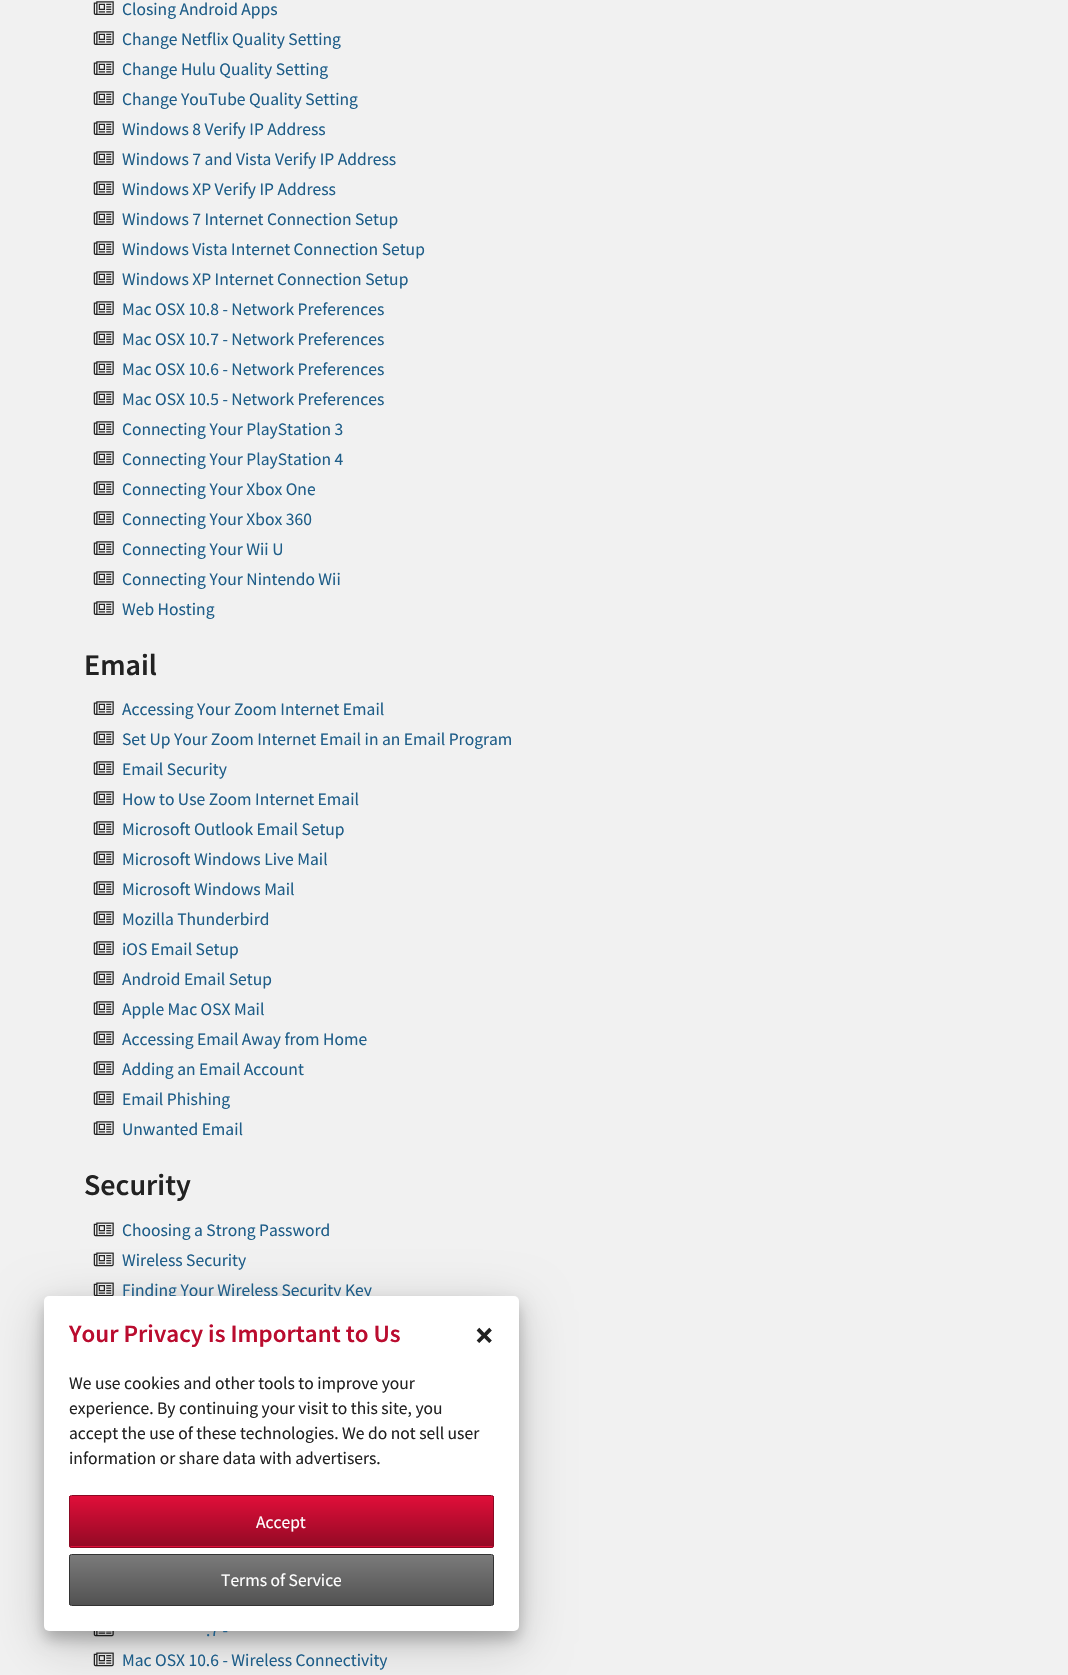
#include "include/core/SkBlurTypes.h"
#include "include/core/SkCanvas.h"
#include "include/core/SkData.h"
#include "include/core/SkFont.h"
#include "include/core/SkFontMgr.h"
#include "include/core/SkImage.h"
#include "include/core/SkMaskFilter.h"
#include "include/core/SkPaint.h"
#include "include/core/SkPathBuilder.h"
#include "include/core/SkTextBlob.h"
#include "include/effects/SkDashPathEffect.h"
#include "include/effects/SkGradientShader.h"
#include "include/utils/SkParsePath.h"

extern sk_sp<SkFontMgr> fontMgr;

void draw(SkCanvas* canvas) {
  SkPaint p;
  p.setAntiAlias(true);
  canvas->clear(SkColorSetRGB(241, 241, 241));
  canvas->drawImageRect(SkImages::DeferredFromEncodedData(SkData::MakeFromFileName("images/1.png")), SkRect::MakeLTRB(93, 1, 114, 15), SkSamplingOptions());
  canvas->drawImageRect(SkImages::DeferredFromEncodedData(SkData::MakeFromFileName("images/1.png")), SkRect::MakeLTRB(93, 31, 114, 45), SkSamplingOptions());
  canvas->drawImageRect(SkImages::DeferredFromEncodedData(SkData::MakeFromFileName("images/1.png")), SkRect::MakeLTRB(93, 61, 114, 75), SkSamplingOptions());
  canvas->drawImageRect(SkImages::DeferredFromEncodedData(SkData::MakeFromFileName("images/1.png")), SkRect::MakeLTRB(93, 91, 114, 105), SkSamplingOptions());
  canvas->drawImageRect(SkImages::DeferredFromEncodedData(SkData::MakeFromFileName("images/1.png")), SkRect::MakeLTRB(93, 121, 114, 135), SkSamplingOptions());
  canvas->drawImageRect(SkImages::DeferredFromEncodedData(SkData::MakeFromFileName("images/1.png")), SkRect::MakeLTRB(93, 151, 114, 165), SkSamplingOptions());
  canvas->drawImageRect(SkImages::DeferredFromEncodedData(SkData::MakeFromFileName("images/1.png")), SkRect::MakeLTRB(93, 181, 114, 195), SkSamplingOptions());
  canvas->drawImageRect(SkImages::DeferredFromEncodedData(SkData::MakeFromFileName("images/1.png")), SkRect::MakeLTRB(93, 211, 114, 225), SkSamplingOptions());
  canvas->drawImageRect(SkImages::DeferredFromEncodedData(SkData::MakeFromFileName("images/1.png")), SkRect::MakeLTRB(93, 241, 114, 255), SkSamplingOptions());
  canvas->drawImageRect(SkImages::DeferredFromEncodedData(SkData::MakeFromFileName("images/1.png")), SkRect::MakeLTRB(93, 271, 114, 285), SkSamplingOptions());
  canvas->drawImageRect(SkImages::DeferredFromEncodedData(SkData::MakeFromFileName("images/1.png")), SkRect::MakeLTRB(93, 301, 114, 315), SkSamplingOptions());
  canvas->drawImageRect(SkImages::DeferredFromEncodedData(SkData::MakeFromFileName("images/1.png")), SkRect::MakeLTRB(93, 331, 114, 345), SkSamplingOptions());
  canvas->drawImageRect(SkImages::DeferredFromEncodedData(SkData::MakeFromFileName("images/1.png")), SkRect::MakeLTRB(93, 361, 114, 375), SkSamplingOptions());
  canvas->drawImageRect(SkImages::DeferredFromEncodedData(SkData::MakeFromFileName("images/1.png")), SkRect::MakeLTRB(93, 391, 114, 405), SkSamplingOptions());
  canvas->drawImageRect(SkImages::DeferredFromEncodedData(SkData::MakeFromFileName("images/1.png")), SkRect::MakeLTRB(93, 421, 114, 435), SkSamplingOptions());
  canvas->drawImageRect(SkImages::DeferredFromEncodedData(SkData::MakeFromFileName("images/1.png")), SkRect::MakeLTRB(93, 451, 114, 465), SkSamplingOptions());
  canvas->drawImageRect(SkImages::DeferredFromEncodedData(SkData::MakeFromFileName("images/1.png")), SkRect::MakeLTRB(93, 481, 114, 495), SkSamplingOptions());
  canvas->drawImageRect(SkImages::DeferredFromEncodedData(SkData::MakeFromFileName("images/1.png")), SkRect::MakeLTRB(93, 511, 114, 525), SkSamplingOptions());
  canvas->drawImageRect(SkImages::DeferredFromEncodedData(SkData::MakeFromFileName("images/1.png")), SkRect::MakeLTRB(93, 541, 114, 555), SkSamplingOptions());
  canvas->drawImageRect(SkImages::DeferredFromEncodedData(SkData::MakeFromFileName("images/1.png")), SkRect::MakeLTRB(93, 571, 114, 585), SkSamplingOptions());
  canvas->drawImageRect(SkImages::DeferredFromEncodedData(SkData::MakeFromFileName("images/1.png")), SkRect::MakeLTRB(93, 601, 114, 615), SkSamplingOptions());
  canvas->drawImageRect(SkImages::DeferredFromEncodedData(SkData::MakeFromFileName("images/1.png")), SkRect::MakeLTRB(93, 701, 114, 715), SkSamplingOptions());
  canvas->drawImageRect(SkImages::DeferredFromEncodedData(SkData::MakeFromFileName("images/1.png")), SkRect::MakeLTRB(93, 731, 114, 745), SkSamplingOptions());
  canvas->drawImageRect(SkImages::DeferredFromEncodedData(SkData::MakeFromFileName("images/1.png")), SkRect::MakeLTRB(93, 761, 114, 775), SkSamplingOptions());
  canvas->drawImageRect(SkImages::DeferredFromEncodedData(SkData::MakeFromFileName("images/1.png")), SkRect::MakeLTRB(93, 791, 114, 805), SkSamplingOptions());
  canvas->drawImageRect(SkImages::DeferredFromEncodedData(SkData::MakeFromFileName("images/1.png")), SkRect::MakeLTRB(93, 821, 114, 835), SkSamplingOptions());
  canvas->drawImageRect(SkImages::DeferredFromEncodedData(SkData::MakeFromFileName("images/1.png")), SkRect::MakeLTRB(93, 851, 114, 865), SkSamplingOptions());
  canvas->drawImageRect(SkImages::DeferredFromEncodedData(SkData::MakeFromFileName("images/1.png")), SkRect::MakeLTRB(93, 881, 114, 895), SkSamplingOptions());
  canvas->drawImageRect(SkImages::DeferredFromEncodedData(SkData::MakeFromFileName("images/1.png")), SkRect::MakeLTRB(93, 911, 114, 925), SkSamplingOptions());
  canvas->drawImageRect(SkImages::DeferredFromEncodedData(SkData::MakeFromFileName("images/1.png")), SkRect::MakeLTRB(93, 941, 114, 955), SkSamplingOptions());
  canvas->drawImageRect(SkImages::DeferredFromEncodedData(SkData::MakeFromFileName("images/1.png")), SkRect::MakeLTRB(93, 971, 114, 985), SkSamplingOptions());
  canvas->drawImageRect(SkImages::DeferredFromEncodedData(SkData::MakeFromFileName("images/1.png")), SkRect::MakeLTRB(93, 1001, 114, 1015), SkSamplingOptions());
  canvas->drawImageRect(SkImages::DeferredFromEncodedData(SkData::MakeFromFileName("images/1.png")), SkRect::MakeLTRB(93, 1031, 114, 1045), SkSamplingOptions());
  canvas->drawImageRect(SkImages::DeferredFromEncodedData(SkData::MakeFromFileName("images/1.png")), SkRect::MakeLTRB(93, 1061, 114, 1075), SkSamplingOptions());
  canvas->drawImageRect(SkImages::DeferredFromEncodedData(SkData::MakeFromFileName("images/1.png")), SkRect::MakeLTRB(93, 1091, 114, 1105), SkSamplingOptions());
  canvas->drawImageRect(SkImages::DeferredFromEncodedData(SkData::MakeFromFileName("images/1.png")), SkRect::MakeLTRB(93, 1121, 114, 1135), SkSamplingOptions());
  canvas->drawImageRect(SkImages::DeferredFromEncodedData(SkData::MakeFromFileName("images/2.png")), SkRect::MakeLTRB(93, 1222, 114, 1237), SkSamplingOptions());
  canvas->drawImageRect(SkImages::DeferredFromEncodedData(SkData::MakeFromFileName("images/2.png")), SkRect::MakeLTRB(93, 1252, 114, 1267), SkSamplingOptions());
  canvas->drawImageRect(SkImages::DeferredFromEncodedData(SkData::MakeFromFileName("images/3.png")), SkRect::MakeLTRB(93, 1282, 114, 1296), SkSamplingOptions());
  canvas->drawImageRect(SkImages::DeferredFromEncodedData(SkData::MakeFromFileName("images/4.png")), SkRect::MakeLTRB(93, 1631, 114, 1637), SkSamplingOptions());
  canvas->drawImageRect(SkImages::DeferredFromEncodedData(SkData::MakeFromFileName("images/2.png")), SkRect::MakeLTRB(93, 1652, 114, 1667), SkSamplingOptions());
  p.setColor(SkColorSetARGB(48, 0, 0, 0));
  p.setMaskFilter(SkMaskFilter::MakeBlur(kNormal_SkBlurStyle, 25));
  canvas->drawRoundRect(SkRect::MakeLTRB(44, 1309, 519, 1644), 5, 5, p);
  p.setMaskFilter(nullptr);
  p.setColor(SkColorSetARGB(59, 0, 0, 0));
  p.setMaskFilter(SkMaskFilter::MakeBlur(kNormal_SkBlurStyle, 7.5f));
  canvas->drawRoundRect(SkRect::MakeLTRB(44, 1304, 519, 1639), 5, 5, p);
  p.setMaskFilter(nullptr);
  SkFont font1(fontMgr->matchFamilyStyle("Source Sans Pro", SkFontStyle::Normal()), 17.5f);
  font1.setSubpixel(true);
  p.setColor(SkColorSetRGB(31, 94, 137));
  canvas->drawString("Closing Android Apps", 122, 15, font1, p);
  canvas->drawString("Change Netflix Quality Setting", 122, 45, font1, p);
  canvas->drawString("Change Hulu Quality Setting", 122, 75, font1, p);
  canvas->drawString("Change YouTube Quality Setting", 122, 105, font1, p);
  canvas->drawString("Windows 8 Verify IP Address", 122, 135, font1, p);
  canvas->drawString("Windows 7 and Vista Verify IP Address", 122, 165, font1, p);
  canvas->drawString("Windows XP Verify IP Address", 122, 195, font1, p);
  canvas->drawString("Windows 7 Internet Connection Setup", 122, 225, font1, p);
  canvas->drawString("Windows Vista Internet Connection Setup", 122, 255, font1, p);
  canvas->drawString("Windows XP Internet Connection Setup", 122, 285, font1, p);
  canvas->drawString("Mac OSX 10.8 - Network Preferences", 122, 315, font1, p);
  canvas->drawString("Mac OSX 10.7 - Network Preferences", 122, 345, font1, p);
  canvas->drawString("Mac OSX 10.6 - Network Preferences", 122, 375, font1, p);
  canvas->drawString("Mac OSX 10.5 - Network Preferences", 122, 405, font1, p);
  canvas->drawString("Connecting Your PlayStation 3", 122, 435, font1, p);
  canvas->drawString("Connecting Your PlayStation 4", 122, 465, font1, p);
  canvas->drawString("Connecting Your Xbox One", 122, 495, font1, p);
  canvas->drawString("Connecting Your Xbox 360", 122, 525, font1, p);
  canvas->drawString("Connecting Your Wii U", 122, 555, font1, p);
  canvas->drawString("Connecting Your Nintendo Wii", 122, 585, font1, p);
  canvas->drawString("Web Hosting", 122, 615, font1, p);
  SkFont font2(fontMgr->matchFamilyStyle("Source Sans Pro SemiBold", SkFontStyle(600, SkFontStyle::kNormal_Width, SkFontStyle::kUpright_Slant)), 30);
  font2.setSubpixel(true);
  p.setColor(SkColorSetRGB(34, 34, 34));
  canvas->drawString("Email", 84, 675, font2, p);
  p.setColor(SkColorSetRGB(31, 94, 137));
  canvas->drawString("Accessing Your Zoom Internet Email", 122, 715, font1, p);
  canvas->drawString("Set Up Your Zoom Internet Email in an Email Program", 122, 745, font1, p);
  canvas->drawString("Email Security", 122, 775, font1, p);
  canvas->drawString("How to Use Zoom Internet Email", 122, 805, font1, p);
  canvas->drawString("Microsoft Outlook Email Setup", 122, 835, font1, p);
  canvas->drawString("Microsoft Windows Live Mail", 122, 865, font1, p);
  canvas->drawString("Microsoft Windows Mail", 122, 895, font1, p);
  canvas->drawString("Mozilla Thunderbird", 122, 925, font1, p);
  canvas->drawString("iOS Email Setup", 122, 955, font1, p);
  canvas->drawString("Android Email Setup", 122, 985, font1, p);
  canvas->drawString("Apple Mac OSX Mail", 122, 1015, font1, p);
  canvas->drawString("Accessing Email Away from Home", 122, 1045, font1, p);
  canvas->drawString("Adding an Email Account", 122, 1075, font1, p);
  canvas->drawString("Email Phishing", 122, 1105, font1, p);
  canvas->drawString("Unwanted Email", 122, 1135, font1, p);
  p.setColor(SkColorSetRGB(34, 34, 34));
  canvas->drawString("Security", 84, 1195, font2, p);
  p.setColor(SkColorSetRGB(31, 94, 137));
  canvas->drawString("Choosing a Strong Password", 122, 1236, font1, p);
  canvas->drawString("Wireless Security", 122, 1266, font1, p);
  canvas->drawString("Finding Your Wireless Security Key", 122, 1296, font1, p);
  canvas->drawString(".7 -", 206, 1636, font1, p);
  canvas->drawString("Mac OSX 10.6 - Wireless Connectivity", 122, 1666, font1, p);
  p.setColor(SK_ColorWHITE);
  canvas->drawRoundRect(SkRect::MakeLTRB(44, 1296, 519, 1631), 5, 5, p);
  SkFont font3(fontMgr->matchFamilyStyle("Source Sans Pro SemiBold", SkFontStyle(600, SkFontStyle::kNormal_Width, SkFontStyle::kUpright_Slant)), 25);
  font3.setSubpixel(true);
  p.setColor(SkColorSetRGB(186, 12, 47));
  canvas->drawString("Your Privacy is Important to Us", 69, 1342, font3, p);
  SkFont font4(fontMgr->matchFamilyStyle("Source Sans Pro", SkFontStyle::Bold()), 35);
  font4.setSubpixel(true);
  p.setColor(SkColorSetRGB(34, 34, 34));
  canvas->drawString("×", 475, 1347, font4, p);
  canvas->drawString("We use cookies and other tools to improve your", 69, 1389, font1, p);
  canvas->drawString("experience. By continuing your visit to this site, you", 69, 1414, font1, p);
  canvas->drawString("accept the use of these technologies. We do not sell user", 69, 1439, font1, p);
  canvas->drawString("information or share data with advertisers.", 69, 1464, font1, p);
  {
    const SkColor colors[] = {SkColorSetRGB(224, 14, 57), SkColorSetRGB(148, 10, 37)};
    const float stops[] = {0, 1};
    const SkPoint ends[] = {{281, 1496}, {281, 1546}};
    p.setShader(SkGradientShader::MakeLinear(ends, colors, stops, 2, SkTileMode::kClamp));
    p.setAlpha(255);
  }
  canvas->drawRect(SkRect::MakeLTRB(69, 1496, 494, 1546), p);
  canvas->save();
  canvas->clipPath(SkPathBuilder().moveTo(71.5f, 1495).lineTo(491.5f, 1495).cubicTo(493, 1495, 494, 1496, 494, 1497.5f).lineTo(494, 1545.5f).cubicTo(494, 1547, 493, 1548, 491.5f, 1548).lineTo(71.5f, 1548).cubicTo(70, 1548, 69, 1547, 69, 1545.5f).lineTo(69, 1497.5f).cubicTo(69, 1496, 70, 1495, 71.5f, 1495).close().detach(), true);
  {
    const SkColor colors[] = {SkColorSetRGB(224, 14, 57), SkColorSetRGB(148, 10, 37)};
    const float stops[] = {0, 1};
    const SkPoint ends[] = {{281, 1546}, {281, 1596}};
    p.setShader(SkGradientShader::MakeLinear(ends, colors, stops, 2, SkTileMode::kClamp));
    p.setAlpha(255);
  }
  canvas->drawRect(SkRect::MakeLTRB(69, 1546, 494, 1548), p);
  canvas->restore();
  p.setStyle(SkPaint::kStroke_Style);
  p.setStrokeWidth(1);
  p.setShader(nullptr);
  p.setColor(SkColorSetRGB(138, 9, 35));
  canvas->drawRoundRect(SkRect::MakeLTRB(69.5f, 1495.5f, 493.5f, 1547.5f), 2, 2, p);
  p.setStyle(SkPaint::kFill_Style);
  p.setColor(SK_ColorWHITE);
  canvas->drawString("Accept", 256, 1528, font1, p);
  canvas->save();
  canvas->clipPath(SkPathBuilder().moveTo(71.5f, 1554).lineTo(491.5f, 1554).cubicTo(493, 1554, 494, 1555, 494, 1556.5f).lineTo(494, 1603.5f).cubicTo(494, 1605, 493, 1606, 491.5f, 1606).lineTo(71.5f, 1606).cubicTo(70, 1606, 69, 1605, 69, 1603.5f).lineTo(69, 1556.5f).cubicTo(69, 1555, 70, 1554, 71.5f, 1554).close().detach(), true);
  {
    const SkColor colors[] = {SkColorSetRGB(122, 122, 122), SkColorSetRGB(82, 82, 82)};
    const float stops[] = {0, 1};
    const SkPoint ends[] = {{281, 1555}, {281, 1605}};
    p.setShader(SkGradientShader::MakeLinear(ends, colors, stops, 2, SkTileMode::kClamp));
    p.setAlpha(255);
  }
  canvas->drawRect(SkRect::MakeLTRB(69, 1555, 494, 1605), p);
  canvas->restore();
  p.setStyle(SkPaint::kStroke_Style);
  p.setShader(nullptr);
  p.setColor(SkColorSetRGB(51, 51, 51));
  canvas->drawRoundRect(SkRect::MakeLTRB(69.5f, 1554.5f, 493.5f, 1605.5f), 2, 2, p);
  p.setStyle(SkPaint::kFill_Style);
  p.setColor(SK_ColorWHITE);
  canvas->drawString("Terms of Service", 221, 1586, font1, p);
}
